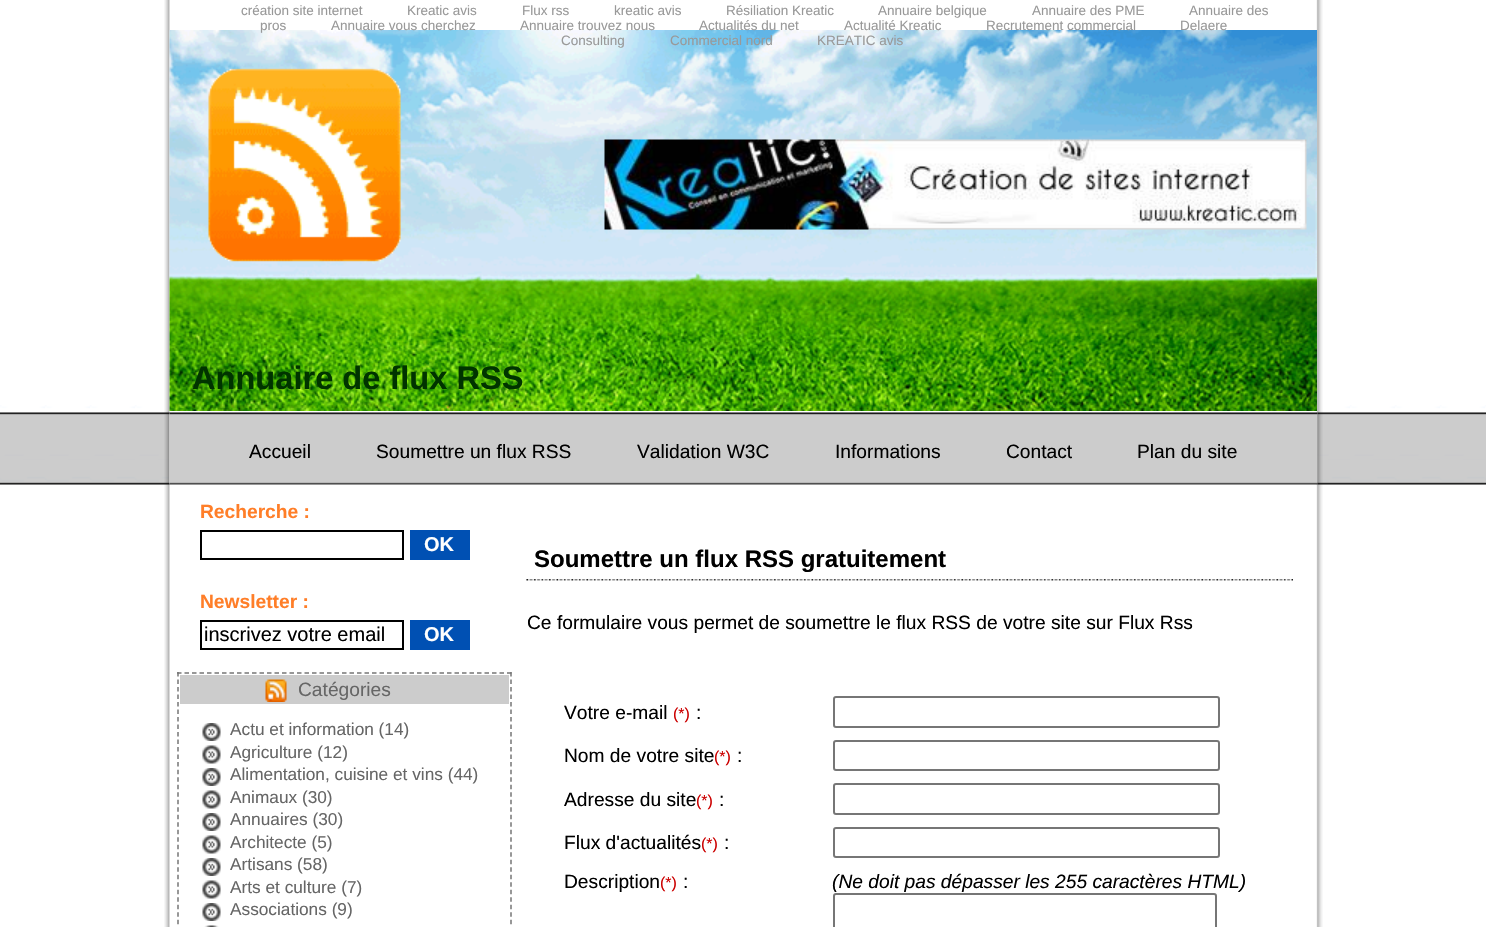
#include "include/core/SkBlurTypes.h"
#include "include/core/SkCanvas.h"
#include "include/core/SkData.h"
#include "include/core/SkFont.h"
#include "include/core/SkFontMgr.h"
#include "include/core/SkImage.h"
#include "include/core/SkMaskFilter.h"
#include "include/core/SkPaint.h"
#include "include/core/SkPathBuilder.h"
#include "include/core/SkTextBlob.h"
#include "include/effects/SkDashPathEffect.h"
#include "include/effects/SkGradientShader.h"
#include "include/utils/SkParsePath.h"

extern sk_sp<SkFontMgr> fontMgr;

void draw(SkCanvas* canvas) {
  SkPaint p;
  p.setAntiAlias(true);
  canvas->clear(SK_ColorWHITE);
  canvas->drawImageRect(SkImages::DeferredFromEncodedData(SkData::MakeFromFileName("images/1.png")), SkRect::MakeLTRB(0, 405, 1486, 485), SkSamplingOptions());
  canvas->drawImageRect(SkImages::DeferredFromEncodedData(SkData::MakeFromFileName("images/2.png")), SkRect::MakeLTRB(164, 0, 1323, 927), SkSamplingOptions());
  canvas->drawImageRect(SkImages::DeferredFromEncodedData(SkData::MakeFromFileName("images/3.png")), SkRect::MakeLTRB(169, 30, 1317, 411), SkSamplingOptions());
  canvas->drawImageRect(SkImages::DeferredFromEncodedData(SkData::MakeFromFileName("images/4.png")), SkRect::MakeLTRB(604, 139, 1307, 230), SkSamplingOptions());
  canvas->drawImageRect(SkImages::DeferredFromEncodedData(SkData::MakeFromFileName("images/5.png")), SkRect::MakeLTRB(169, 412, 1317, 485), SkSamplingOptions());
  p.setStyle(SkPaint::kStroke_Style);
  p.setStrokeWidth(2);
  p.setColor(SK_ColorBLACK);
  canvas->drawRect(SkRect::MakeLTRB(201, 531, 403, 559), p);
  p.setStyle(SkPaint::kFill_Style);
  p.setColor(SkColorSetRGB(0, 80, 179));
  canvas->drawRect(SkRect::MakeLTRB(410, 530, 470, 560), p);
  p.setStyle(SkPaint::kStroke_Style);
  p.setColor(SK_ColorBLACK);
  canvas->drawRect(SkRect::MakeLTRB(201, 621, 403, 649), p);
  p.setStyle(SkPaint::kFill_Style);
  p.setColor(SkColorSetRGB(0, 80, 179));
  canvas->drawRect(SkRect::MakeLTRB(410, 620, 470, 650), p);
  p.setStyle(SkPaint::kStroke_Style);
  p.setStrokeWidth(1.5f);
  p.setColor(SkColorSetRGB(117, 117, 117));
  p.setPathEffect(SkDashPathEffect::Make({{4.5f, 3}}, 0));
  canvas->drawPath(SkPathBuilder().moveTo(177, 673).lineTo(511.5f, 673).detach(), p);
  p.setPathEffect(nullptr);
  p.setPathEffect(SkDashPathEffect::Make({{4.5f, 3.01f}}, 0));
  canvas->drawPath(SkPathBuilder().moveTo(511, 672).lineTo(511, 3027).detach(), p);
  p.setPathEffect(nullptr);
  p.setPathEffect(SkDashPathEffect::Make({{4.5f, 3.01f}}, 0));
  canvas->drawPath(SkPathBuilder().moveTo(178, 672).lineTo(178, 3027).detach(), p);
  p.setPathEffect(nullptr);
  p.setStyle(SkPaint::kFill_Style);
  p.setColor(SkColorSetRGB(204, 204, 204));
  canvas->drawRect(SkRect::MakeLTRB(180, 675, 509, 704), p);
  canvas->drawImageRect(SkImages::DeferredFromEncodedData(SkData::MakeFromFileName("images/6.png")), SkRect::MakeLTRB(265, 679, 287, 702), SkSamplingOptions());
  canvas->drawImageRect(SkImages::DeferredFromEncodedData(SkData::MakeFromFileName("images/7.png")), SkRect::MakeLTRB(202, 723, 221, 741), SkSamplingOptions());
  canvas->drawImageRect(SkImages::DeferredFromEncodedData(SkData::MakeFromFileName("images/8.png")), SkRect::MakeLTRB(202, 745, 221, 764), SkSamplingOptions());
  canvas->drawImageRect(SkImages::DeferredFromEncodedData(SkData::MakeFromFileName("images/7.png")), SkRect::MakeLTRB(202, 768, 221, 786), SkSamplingOptions());
  canvas->drawImageRect(SkImages::DeferredFromEncodedData(SkData::MakeFromFileName("images/8.png")), SkRect::MakeLTRB(202, 790, 221, 809), SkSamplingOptions());
  canvas->drawImageRect(SkImages::DeferredFromEncodedData(SkData::MakeFromFileName("images/7.png")), SkRect::MakeLTRB(202, 813, 221, 831), SkSamplingOptions());
  canvas->drawImageRect(SkImages::DeferredFromEncodedData(SkData::MakeFromFileName("images/8.png")), SkRect::MakeLTRB(202, 835, 221, 854), SkSamplingOptions());
  canvas->drawImageRect(SkImages::DeferredFromEncodedData(SkData::MakeFromFileName("images/7.png")), SkRect::MakeLTRB(202, 858, 221, 876), SkSamplingOptions());
  canvas->drawImageRect(SkImages::DeferredFromEncodedData(SkData::MakeFromFileName("images/8.png")), SkRect::MakeLTRB(202, 880, 221, 899), SkSamplingOptions());
  canvas->drawImageRect(SkImages::DeferredFromEncodedData(SkData::MakeFromFileName("images/7.png")), SkRect::MakeLTRB(202, 903, 221, 921), SkSamplingOptions());
  canvas->drawImageRect(SkImages::DeferredFromEncodedData(SkData::MakeFromFileName("images/9.png")), SkRect::MakeLTRB(204, 925, 219, 927), SkSamplingOptions());
  canvas->drawImageRect(SkImages::DeferredFromEncodedData(SkData::MakeFromFileName("images/10.png")), SkRect::MakeLTRB(526, 579, 1293, 581), SkSamplingOptions());
  p.setStyle(SkPaint::kStroke_Style);
  p.setStrokeWidth(2);
  p.setColor(SkColorSetRGB(118, 118, 118));
  canvas->drawRoundRect(SkRect::MakeLTRB(834, 697, 1219, 727), 2, 2, p);
  canvas->drawRoundRect(SkRect::MakeLTRB(834, 741, 1219, 770), 2, 2, p);
  canvas->drawRoundRect(SkRect::MakeLTRB(834, 784, 1219, 814), 2, 2, p);
  canvas->drawRoundRect(SkRect::MakeLTRB(834, 828, 1219, 857), 2, 2, p);
  canvas->drawRoundRect(SkRect::MakeLTRB(834, 894, 1216, 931), 2, 2, p);
  SkFont font1(fontMgr->matchFamilyStyle("Liberation Sans", SkFontStyle::Normal()), 13.5f);
  font1.setSubpixel(true);
  p.setStyle(SkPaint::kFill_Style);
  p.setColor(SkColorSetRGB(153, 153, 153));
  canvas->drawString("création site internet", 241, 15, font1, p);
  canvas->drawString("Kreatic avis", 407, 15, font1, p);
  canvas->drawString("Flux rss", 522, 15, font1, p);
  canvas->drawString("kreatic avis", 614, 15, font1, p);
  canvas->drawString("Résiliation Kreatic", 726, 15, font1, p);
  canvas->drawString("Annuaire belgique", 878, 15, font1, p);
  canvas->drawString("Annuaire des PME", 1032, 15, font1, p);
  canvas->drawString("Annuaire des", 1189, 15, font1, p);
  canvas->drawString("pros", 260, 30, font1, p);
  canvas->drawString("Annuaire vous cherchez", 331, 30, font1, p);
  canvas->drawString("Annuaire trouvez nous", 520, 30, font1, p);
  canvas->drawString("Actualités du net", 699, 30, font1, p);
  canvas->drawString("Actualité Kreatic", 844, 30, font1, p);
  canvas->drawString("Recrutement commercial", 986, 30, font1, p);
  canvas->drawString("Delaere", 1180, 30, font1, p);
  canvas->drawString("Consulting", 561, 45, font1, p);
  canvas->drawString("Commercial nord", 670, 45, font1, p);
  canvas->drawString("KREATIC avis", 817, 45, font1, p);
  SkFont font2(fontMgr->matchFamilyStyle("Liberation Sans", SkFontStyle::Bold()), 32.6f);
  font2.setSubpixel(true);
  p.setColor(SkColorSetRGB(0, 51, 0));
  canvas->drawString("Annuaire de flux RSS", 192, 389, font2, p);
  SkFont font3(fontMgr->matchFamilyStyle("Liberation Sans", SkFontStyle::Normal()), 19.2f);
  font3.setSubpixel(true);
  p.setColor(SK_ColorBLACK);
  canvas->drawString("Accueil", 249, 458, font3, p);
  canvas->drawString("Soumettre un flux RSS", 376, 458, font3, p);
  canvas->drawString("Validation W3C", 637, 458, font3, p);
  canvas->drawString("Informations", 835, 458, font3, p);
  canvas->drawString("Contact", 1006, 458, font3, p);
  canvas->drawString("Plan du site", 1137, 458, font3, p);
  SkFont font4(fontMgr->matchFamilyStyle("Liberation Sans", SkFontStyle::Bold()), 19.2f);
  font4.setSubpixel(true);
  p.setColor(SkColorSetRGB(255, 126, 40));
  canvas->drawString("Recherche :", 200, 518, font4, p);
  SkFont font5(fontMgr->matchFamilyStyle("Liberation Sans", SkFontStyle::Bold()), 20);
  font5.setSubpixel(true);
  p.setColor(SK_ColorWHITE);
  canvas->drawString("OK", 424, 551, font5, p);
  p.setColor(SkColorSetRGB(255, 126, 40));
  canvas->drawString("Newsletter :", 200, 608, font4, p);
  SkFont font6(fontMgr->matchFamilyStyle("Liberation Sans", SkFontStyle::Normal()), 20);
  font6.setSubpixel(true);
  p.setColor(SK_ColorBLACK);
  canvas->drawString("inscrivez votre email", 204, 641, font6, p);
  p.setColor(SK_ColorWHITE);
  canvas->drawString("OK", 424, 641, font5, p);
  p.setColor(SkColorSetRGB(102, 102, 102));
  canvas->drawString("Catégories", 298, 696, font3, p);
  SkFont font7(fontMgr->matchFamilyStyle("Liberation Sans", SkFontStyle::Normal()), 17.25f);
  font7.setSubpixel(true);
  canvas->drawString("Actu et information (14)", 230, 735, font7, p);
  canvas->drawString("Agriculture (12)", 230, 758, font7, p);
  canvas->drawString("Alimentation, cuisine et vins (44)", 230, 780, font7, p);
  canvas->drawString("Animaux (30)", 230, 803, font7, p);
  canvas->drawString("Annuaires (30)", 230, 825, font7, p);
  canvas->drawString("Architecte (5)", 230, 848, font7, p);
  canvas->drawString("Artisans (58)", 230, 870, font7, p);
  canvas->drawString("Arts et culture (7)", 230, 893, font7, p);
  canvas->drawString("Associations (9)", 230, 915, font7, p);
  SkFont font8(fontMgr->matchFamilyStyle("Liberation Sans", SkFontStyle::Bold()), 24);
  font8.setSubpixel(true);
  p.setColor(SK_ColorBLACK);
  canvas->drawString("Soumettre un flux RSS gratuitement", 534, 567, font8, p);
  canvas->drawString("Ce formulaire vous permet de soumettre le flux RSS de votre site sur Flux Rss", 527, 629, font3, p);
  canvas->drawString("Votre e-mail", 564, 719, font3, p);
  SkFont font9(fontMgr->matchFamilyStyle("Liberation Sans", SkFontStyle::Normal()), 16);
  font9.setSubpixel(true);
  p.setColor(SkColorSetRGB(204, 0, 0));
  canvas->drawString("(*)", 673, 719, font9, p);
  p.setColor(SK_ColorBLACK);
  canvas->drawString(":", 696, 719, font3, p);
  canvas->drawString("Nom de votre site", 564, 762, font3, p);
  p.setColor(SkColorSetRGB(204, 0, 0));
  canvas->drawString("(*)", 714, 762, font9, p);
  p.setColor(SK_ColorBLACK);
  canvas->drawString(":", 737, 762, font3, p);
  canvas->drawString("Adresse du site", 564, 806, font3, p);
  p.setColor(SkColorSetRGB(204, 0, 0));
  canvas->drawString("(*)", 696, 806, font9, p);
  p.setColor(SK_ColorBLACK);
  canvas->drawString(":", 719, 806, font3, p);
  canvas->drawString("Flux d'actualités", 564, 849, font3, p);
  p.setColor(SkColorSetRGB(204, 0, 0));
  canvas->drawString("(*)", 701, 849, font9, p);
  p.setColor(SK_ColorBLACK);
  canvas->drawString(":", 724, 849, font3, p);
  canvas->drawString("Description", 564, 888, font3, p);
  p.setColor(SkColorSetRGB(204, 0, 0));
  canvas->drawString("(*)", 660, 888, font9, p);
  p.setColor(SK_ColorBLACK);
  canvas->drawString(":", 683, 888, font3, p);
  SkFont font10(fontMgr->matchFamilyStyle("Liberation Sans", SkFontStyle::Italic()), 19.2f);
  font10.setSubpixel(true);
  canvas->drawString("(Ne doit pas dépasser les 255 caractères HTML)", 832, 888, font10, p);
}
